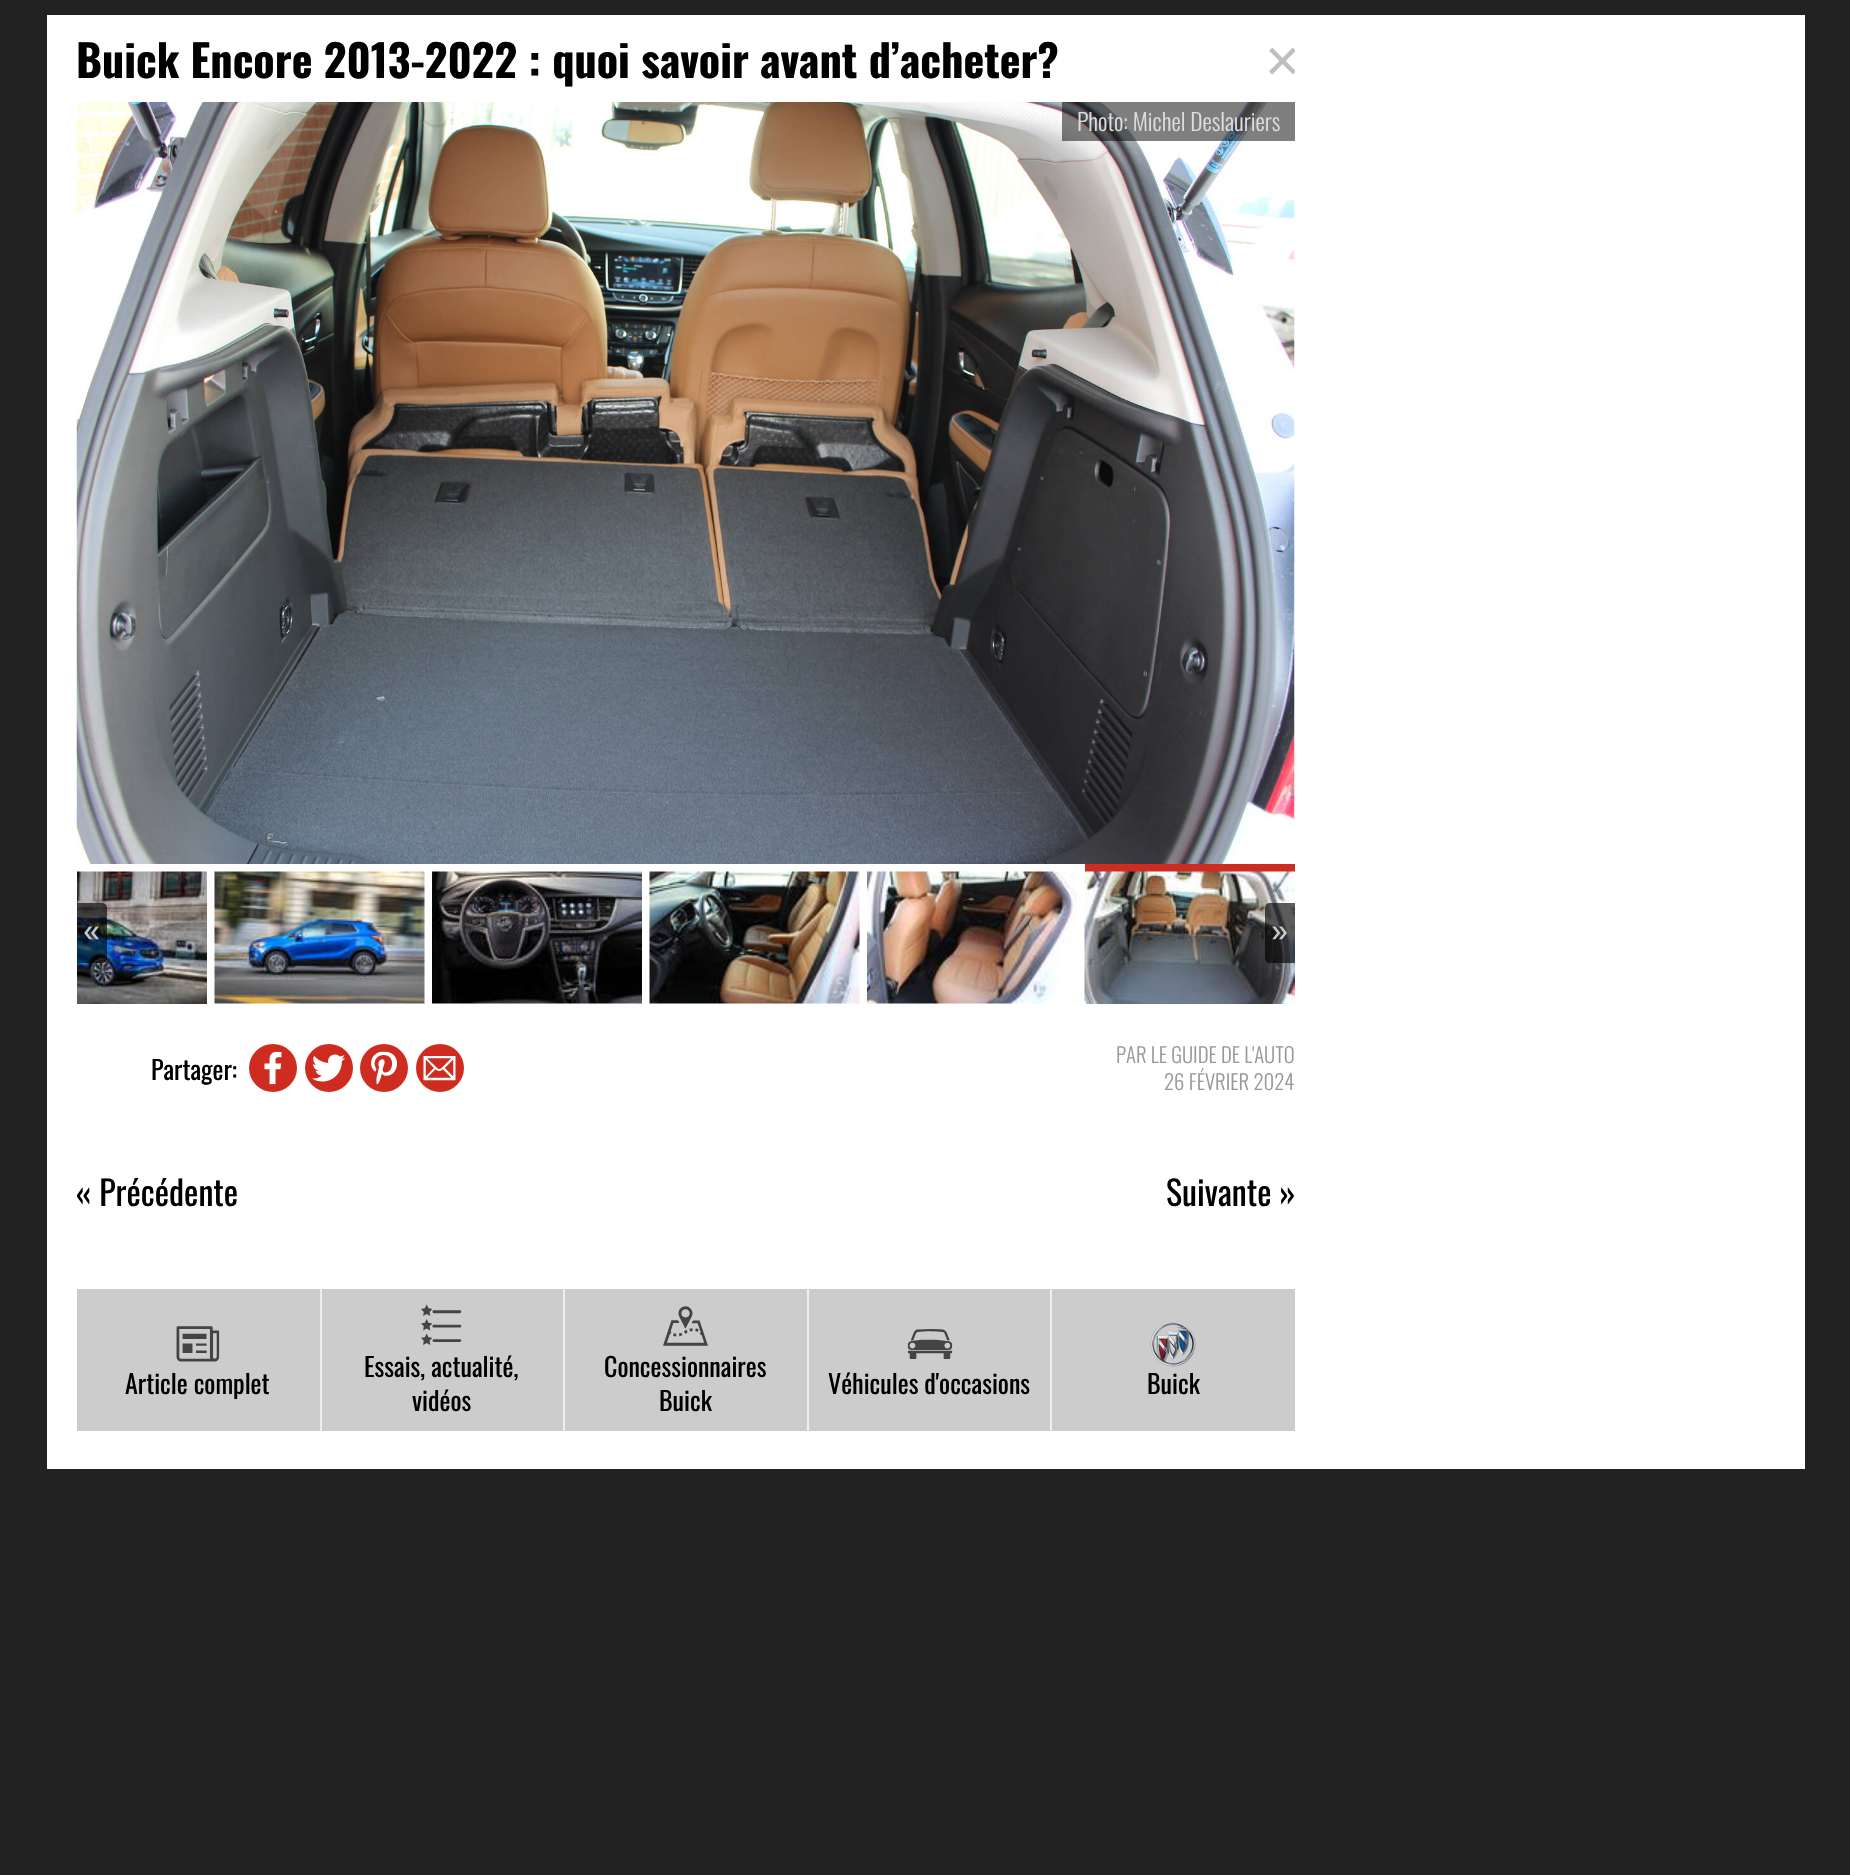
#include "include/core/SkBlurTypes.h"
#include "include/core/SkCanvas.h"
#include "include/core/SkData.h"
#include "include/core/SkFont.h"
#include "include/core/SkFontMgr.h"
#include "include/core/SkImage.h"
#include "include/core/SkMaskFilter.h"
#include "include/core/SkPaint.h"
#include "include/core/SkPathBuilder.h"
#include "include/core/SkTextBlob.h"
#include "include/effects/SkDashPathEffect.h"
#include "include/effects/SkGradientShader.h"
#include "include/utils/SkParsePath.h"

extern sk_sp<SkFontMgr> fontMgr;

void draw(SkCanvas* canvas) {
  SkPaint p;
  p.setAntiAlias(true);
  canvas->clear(SkColorSetRGB(34, 34, 34));
  p.setColor(SK_ColorWHITE);
  canvas->drawRect(SkRect::MakeLTRB(47, 15, 1805, 1469), p);
  canvas->drawImageRect(SkImages::DeferredFromEncodedData(SkData::MakeFromFileName("images/1.png")), SkRect::MakeLTRB(76, 102, 1295, 864), SkSamplingOptions());
  p.setColor(SkColorSetARGB(128, 0, 0, 0));
  canvas->drawRect(SkRect::MakeLTRB(1062, 102, 1295, 141), p);
  canvas->drawImageRect(SkImages::DeferredFromEncodedData(SkData::MakeFromFileName("images/2.png")), SkRect::MakeLTRB(77, 871, 207, 1004), SkSamplingOptions());
  canvas->drawImageRect(SkImages::DeferredFromEncodedData(SkData::MakeFromFileName("images/3.png")), SkRect::MakeLTRB(214, 871, 425, 1004), SkSamplingOptions());
  canvas->drawImageRect(SkImages::DeferredFromEncodedData(SkData::MakeFromFileName("images/4.png")), SkRect::MakeLTRB(432, 871, 642, 1004), SkSamplingOptions());
  canvas->drawImageRect(SkImages::DeferredFromEncodedData(SkData::MakeFromFileName("images/5.png")), SkRect::MakeLTRB(649, 871, 860, 1004), SkSamplingOptions());
  canvas->drawImageRect(SkImages::DeferredFromEncodedData(SkData::MakeFromFileName("images/6.png")), SkRect::MakeLTRB(867, 871, 1077, 1004), SkSamplingOptions());
  p.setColor(SkColorSetRGB(206, 44, 33));
  canvas->drawRect(SkRect::MakeLTRB(1085, 864, 1295, 872), p);
  canvas->drawImageRect(SkImages::DeferredFromEncodedData(SkData::MakeFromFileName("images/7.png")), SkRect::MakeLTRB(1084, 871, 1295, 1004), SkSamplingOptions());
  p.setColor(SkColorSetARGB(163, 0, 0, 0));
  canvas->drawPath(SkPathBuilder().moveTo(77, 903).lineTo(102, 903).cubicTo(105, 903, 107, 905, 107, 908).lineTo(107, 958).cubicTo(107, 961, 105, 963, 102, 963).lineTo(77, 963).close().detach(), p);
  canvas->drawImageRect(SkImages::DeferredFromEncodedData(SkData::MakeFromFileName("images/8.png")), SkRect::MakeLTRB(84, 926, 99, 940), SkSamplingOptions());
  canvas->drawPath(SkPathBuilder().moveTo(1270, 903).lineTo(1295, 903).lineTo(1295, 963).lineTo(1270, 963).cubicTo(1267, 963, 1265, 961, 1265, 958).lineTo(1265, 908).cubicTo(1265, 905, 1267, 903, 1270, 903).close().detach(), p);
  canvas->drawImageRect(SkImages::DeferredFromEncodedData(SkData::MakeFromFileName("images/9.png")), SkRect::MakeLTRB(1272, 926, 1287, 940), SkSamplingOptions());
  p.setColor(SkColorSetRGB(206, 44, 33));
  canvas->drawCircle(273, 1068, 24, p);
  canvas->drawImageRect(SkImages::DeferredFromEncodedData(SkData::MakeFromFileName("images/10.png")), SkRect::MakeLTRB(264, 1051, 282, 1085), SkSamplingOptions());
  canvas->drawCircle(329, 1068, 24, p);
  canvas->drawImageRect(SkImages::DeferredFromEncodedData(SkData::MakeFromFileName("images/11.png")), SkRect::MakeLTRB(312, 1054, 345, 1082), SkSamplingOptions());
  canvas->drawCircle(384, 1068, 24, p);
  canvas->drawImageRect(SkImages::DeferredFromEncodedData(SkData::MakeFromFileName("images/12.png")), SkRect::MakeLTRB(371, 1051, 397, 1085), SkSamplingOptions());
  canvas->drawCircle(440, 1068, 24, p);
  canvas->drawImageRect(SkImages::DeferredFromEncodedData(SkData::MakeFromFileName("images/13.png")), SkRect::MakeLTRB(423, 1056, 456, 1081), SkSamplingOptions());
  p.setColor(SkColorSetRGB(204, 204, 204));
  canvas->drawRect(SkRect::MakeLTRB(77, 1289, 1295, 1431), p);
  canvas->drawImageRect(SkImages::DeferredFromEncodedData(SkData::MakeFromFileName("images/14.png")), SkRect::MakeLTRB(176, 1326, 220, 1362), SkSamplingOptions());
  p.setColor(SkColorSetRGB(238, 238, 238));
  canvas->drawRect(SkRect::MakeLTRB(320, 1289, 322, 1431), p);
  canvas->drawImageRect(SkImages::DeferredFromEncodedData(SkData::MakeFromFileName("images/15.png")), SkRect::MakeLTRB(421, 1304, 462, 1345), SkSamplingOptions());
  canvas->drawRect(SkRect::MakeLTRB(563, 1289, 565, 1431), p);
  canvas->drawImageRect(SkImages::DeferredFromEncodedData(SkData::MakeFromFileName("images/16.png")), SkRect::MakeLTRB(663, 1306, 708, 1346), SkSamplingOptions());
  canvas->drawRect(SkRect::MakeLTRB(807, 1289, 809, 1431), p);
  canvas->drawImageRect(SkImages::DeferredFromEncodedData(SkData::MakeFromFileName("images/17.png")), SkRect::MakeLTRB(907, 1329, 953, 1359), SkSamplingOptions());
  canvas->drawRect(SkRect::MakeLTRB(1050, 1289, 1052, 1431), p);
  canvas->drawImageRect(SkImages::DeferredFromEncodedData(SkData::MakeFromFileName("images/18.png")), SkRect::MakeLTRB(1150, 1321, 1196, 1367), SkSamplingOptions());
  SkFont font1(fontMgr->matchFamilyStyle("Oswald", SkFontStyle::Bold()), 44.2f);
  font1.setSubpixel(true);
  p.setColor(SK_ColorBLACK);
  canvas->drawString("Buick Encore 2013-2022 : quoi savoir avant d’acheter?", 76, 78, font1, p);
  canvas->save();
  canvas->clipRect(SkRect::MakeLTRB(77, 15, 1295, 1469));
  SkFont font2(fontMgr->matchFamilyStyle("Liberation Sans", SkFontStyle::Normal()), 60);
  font2.setSubpixel(true);
  p.setColor(SkColorSetRGB(191, 191, 191));
  canvas->drawString("×", 1265, 81, font2, p);
  canvas->restore();
  SkFont font3(fontMgr->matchFamilyStyle("Oswald", SkFontStyle(300, SkFontStyle::kNormal_Width, SkFontStyle::kUpright_Slant)), 23.5f);
  font3.setSubpixel(true);
  p.setColor(SkColorSetRGB(221, 221, 221));
  canvas->drawString("Photo: Michel Deslauriers", 1077, 131, font3, p);
  SkFont font4(fontMgr->matchFamilyStyle("Oswald", SkFontStyle::Normal()), 26);
  font4.setSubpixel(true);
  p.setColor(SK_ColorBLACK);
  canvas->drawString("Partager:", 151, 1080, font4, p);
  SkFont font5(fontMgr->matchFamilyStyle("Oswald", SkFontStyle(300, SkFontStyle::kNormal_Width, SkFontStyle::kUpright_Slant)), 20.75f);
  font5.setSubpixel(true);
  p.setColor(SkColorSetRGB(153, 153, 153));
  canvas->drawString("PAR LE GUIDE DE L'AUTO", 1116, 1063, font5, p);
  canvas->drawString("26 FÉVRIER 2024", 1164, 1090, font5, p);
  SkFont font6(fontMgr->matchFamilyStyle("Oswald", SkFontStyle::Normal()), 34);
  font6.setSubpixel(true);
  p.setColor(SK_ColorBLACK);
  canvas->drawString("« Précédente", 76, 1206, font6, p);
  canvas->drawString("Suivante »", 1166, 1206, font6, p);
  canvas->drawString("Article complet", 125, 1394, font4, p);
  canvas->drawString("Essais, actualité,", 364, 1377, font4, p);
  canvas->drawString("vidéos", 412, 1411, font4, p);
  canvas->drawString("Concessionnaires", 604, 1377, font4, p);
  canvas->drawString("Buick", 659, 1411, font4, p);
  canvas->drawString("Véhicules d'occasions", 828, 1394, font4, p);
  canvas->drawString("Buick", 1147, 1394, font4, p);
}
